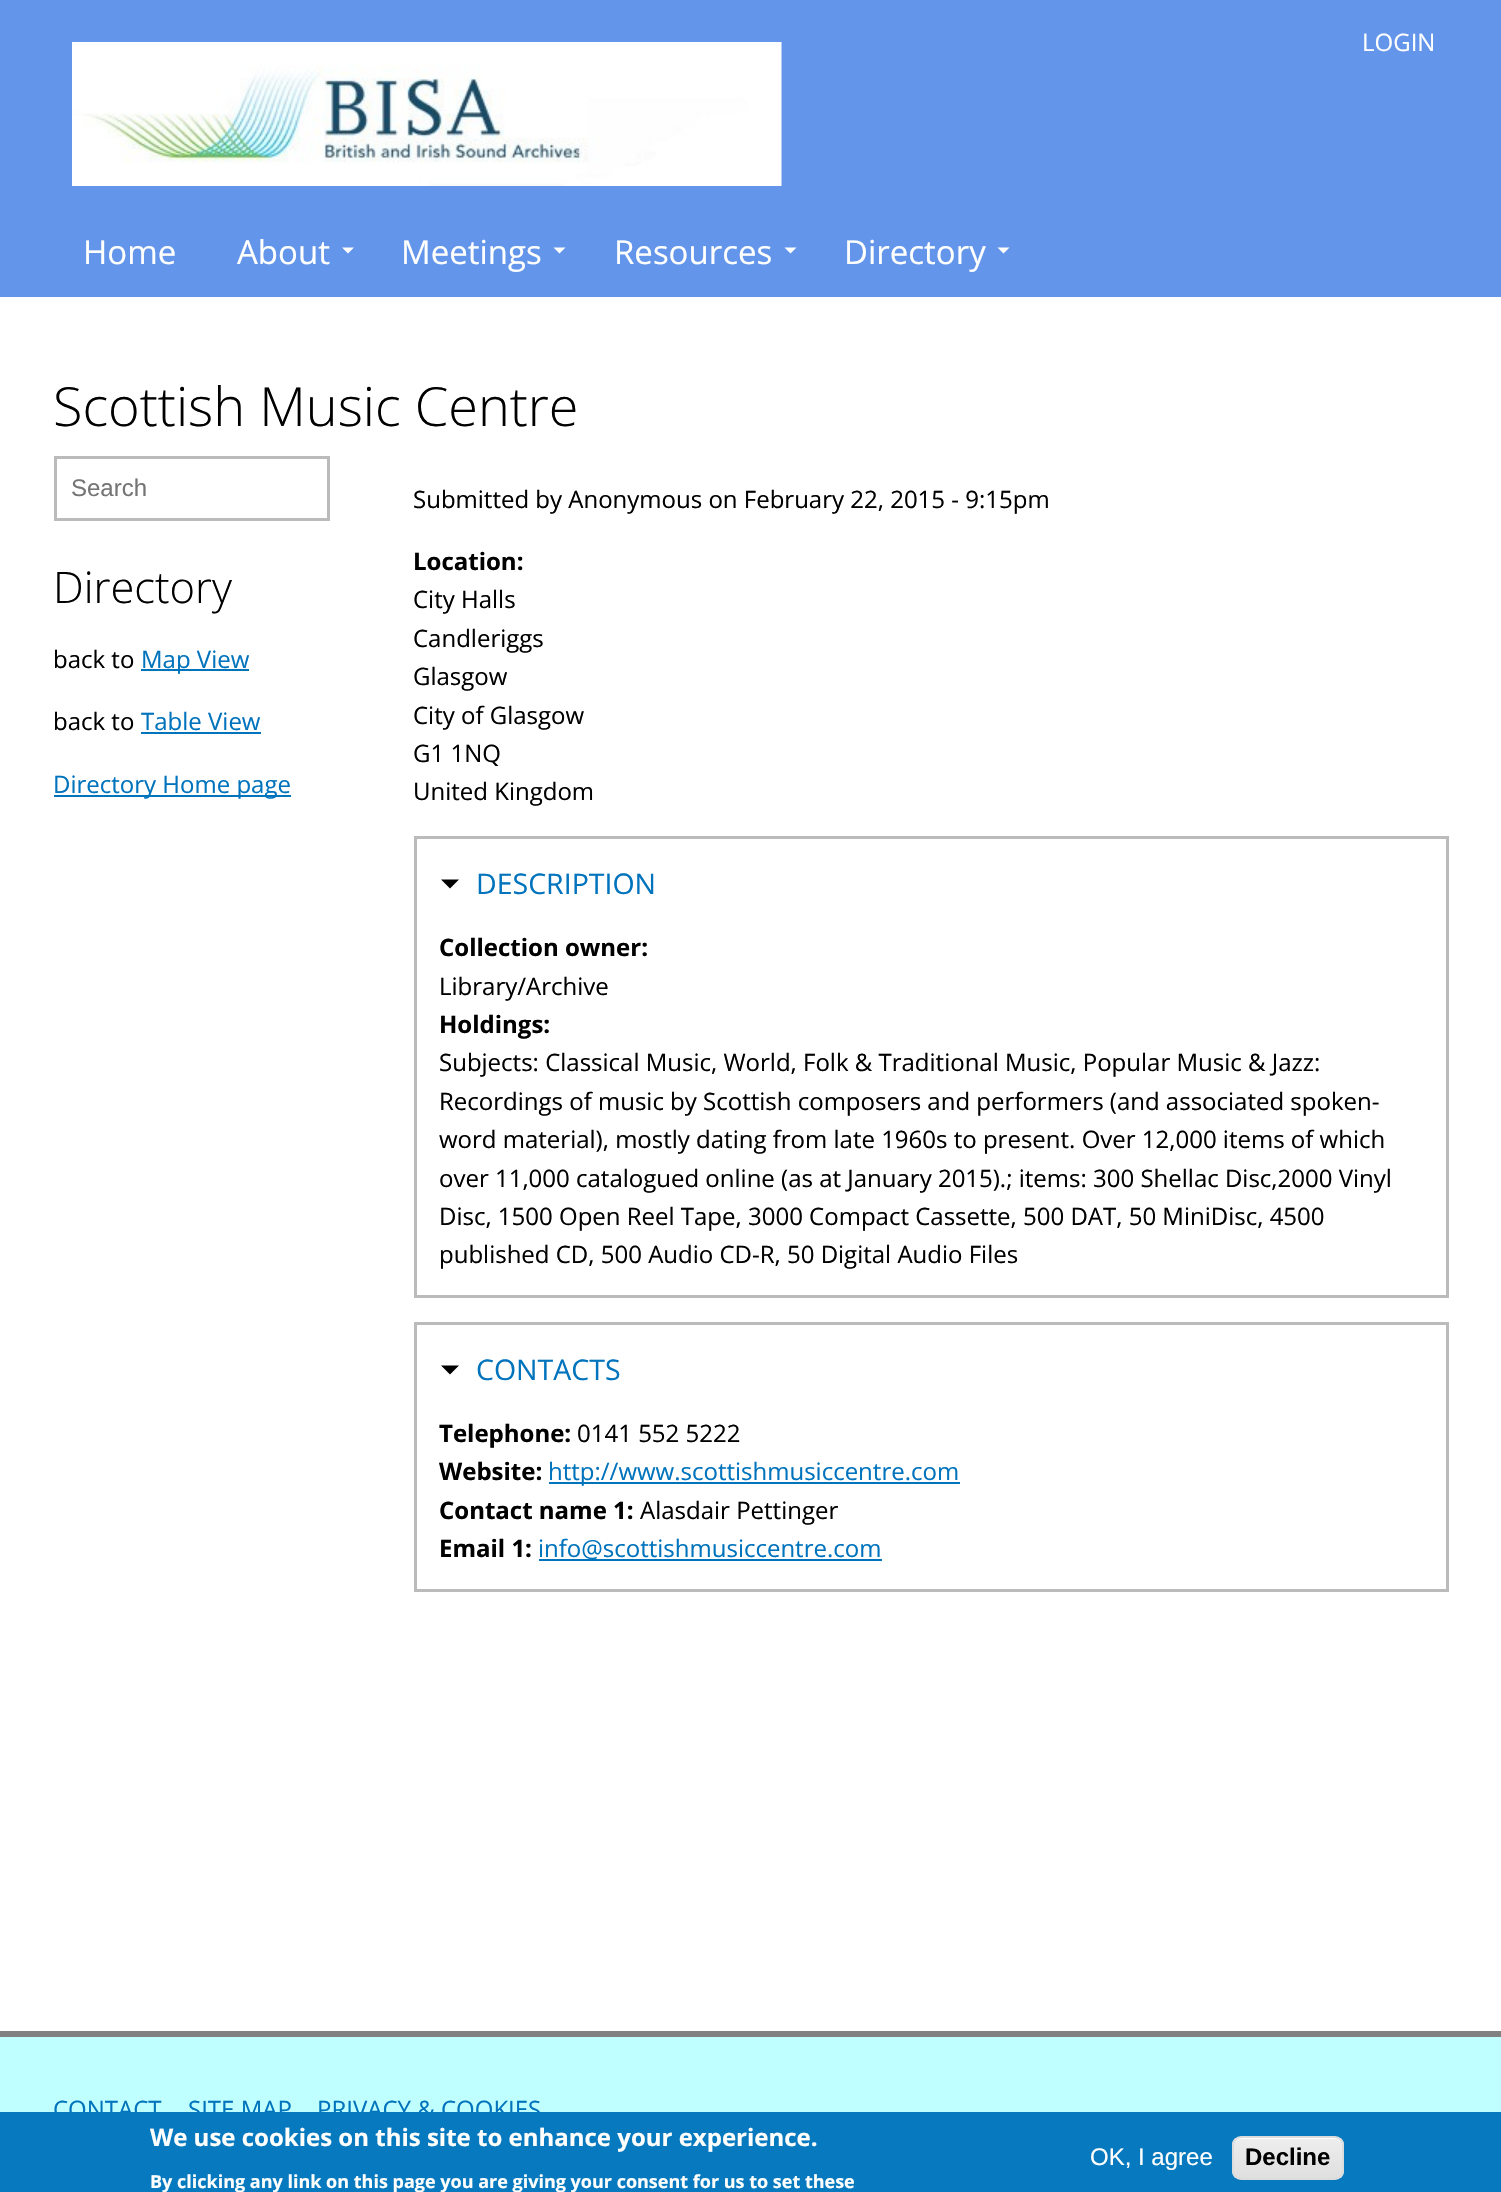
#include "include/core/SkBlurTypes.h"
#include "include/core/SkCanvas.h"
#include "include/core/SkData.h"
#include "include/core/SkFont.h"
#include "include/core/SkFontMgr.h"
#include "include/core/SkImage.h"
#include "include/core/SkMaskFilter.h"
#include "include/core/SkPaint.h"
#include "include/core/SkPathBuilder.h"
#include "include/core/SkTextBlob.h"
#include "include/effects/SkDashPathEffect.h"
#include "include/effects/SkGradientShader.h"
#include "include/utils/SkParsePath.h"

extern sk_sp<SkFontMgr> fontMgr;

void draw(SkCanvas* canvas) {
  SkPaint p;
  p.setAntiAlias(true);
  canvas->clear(SK_ColorWHITE);
  p.setColor(SkColorSetRGB(99, 150, 235));
  canvas->drawRect(SkRect::MakeLTRB(0, 0, 1501, 297), p);
  canvas->drawImageRect(SkImages::DeferredFromEncodedData(SkData::MakeFromFileName("images/1.png")), SkRect::MakeLTRB(72, 42, 782, 186), SkSamplingOptions());
  p.setColor(SkColorSetRGB(255, 255, 254));
  canvas->drawPath(SkPathBuilder().moveTo(342, 247.5f).lineTo(354, 247.5f).lineTo(348, 253.5f).close().detach(), p);
  canvas->drawPath(SkPathBuilder().moveTo(553.5f, 247.5f).lineTo(565.5f, 247.5f).lineTo(559.5f, 253.5f).close().detach(), p);
  canvas->drawPath(SkPathBuilder().moveTo(784.5f, 247.5f).lineTo(796.5f, 247.5f).lineTo(790.5f, 253.5f).close().detach(), p);
  canvas->drawPath(SkPathBuilder().moveTo(997.5f, 247.5f).lineTo(1009.5f, 247.5f).lineTo(1003.5f, 253.5f).close().detach(), p);
  p.setStyle(SkPaint::kStroke_Style);
  p.setStrokeWidth(3);
  p.setColor(SkColorSetRGB(187, 187, 187));
  canvas->drawRect(SkRect::MakeLTRB(55.5f, 457.5f, 328.5f, 519.5f), p);
  p.setStyle(SkPaint::kFill_Style);
  p.setColor(SkColorSetRGB(0, 115, 189));
  canvas->drawRect(SkRect::MakeLTRB(141, 669, 249, 671), p);
  canvas->drawRect(SkRect::MakeLTRB(141, 732, 261, 734), p);
  canvas->drawRect(SkRect::MakeLTRB(54, 795, 291, 797), p);
  p.setStyle(SkPaint::kStroke_Style);
  p.setColor(SkColorSetRGB(187, 187, 187));
  canvas->drawRect(SkRect::MakeLTRB(415.5f, 837.5f, 1447.5f, 1296.5f), p);
  p.setStyle(SkPaint::kFill_Style);
  p.setColor(SK_ColorBLACK);
  canvas->drawPath(SkPathBuilder().moveTo(441, 879.5f).lineTo(459, 879.5f).lineTo(450, 888.5f).close().detach(), p);
  p.setStyle(SkPaint::kStroke_Style);
  p.setColor(SkColorSetRGB(187, 187, 187));
  canvas->drawRect(SkRect::MakeLTRB(415.5f, 1323.5f, 1447.5f, 1590.5f), p);
  p.setStyle(SkPaint::kFill_Style);
  p.setColor(SK_ColorBLACK);
  canvas->drawPath(SkPathBuilder().moveTo(441, 1365.5f).lineTo(459, 1365.5f).lineTo(450, 1374.5f).close().detach(), p);
  p.setColor(SkColorSetRGB(0, 115, 189));
  canvas->drawRect(SkRect::MakeLTRB(549, 1482, 960, 1484), p);
  canvas->drawRect(SkRect::MakeLTRB(539, 1559, 882, 1561), p);
  p.setColor(SkColorSetRGB(191, 255, 255));
  canvas->drawRect(SkRect::MakeLTRB(0, 2037, 1501, 2112), p);
  p.setColor(SkColorSetRGB(128, 128, 128));
  canvas->drawRect(SkRect::MakeLTRB(0, 2031, 1501, 2037), p);
  SkFont font1(fontMgr->matchFamilyStyle("Open Sans", SkFontStyle::Normal()), 24);
  font1.setSubpixel(true);
  p.setColor(SkColorSetRGB(255, 255, 254));
  canvas->drawString("LOGIN", 1362, 51, font1, p);
  SkFont font2(fontMgr->matchFamilyStyle("Open Sans", SkFontStyle::Normal()), 33);
  font2.setSubpixel(true);
  canvas->drawString("Home", 83, 264, font2, p);
  canvas->drawString("About", 237, 264, font2, p);
  canvas->drawString("Meetings", 401, 264, font2, p);
  canvas->drawString("Resources", 614, 264, font2, p);
  canvas->drawString("Directory", 844, 264, font2, p);
  SkFont font3(fontMgr->matchFamilyStyle("Open Sans", SkFontStyle(300, SkFontStyle::kNormal_Width, SkFontStyle::kUpright_Slant)), 54);
  font3.setSubpixel(true);
  p.setColor(SkColorSetRGB(0, 0, 1));
  canvas->drawString("Scottish Music Centre", 53, 426, font3, p);
  SkFont font4(fontMgr->matchFamilyStyle("Liberation Sans", SkFontStyle::Normal()), 24);
  font4.setSubpixel(true);
  p.setColor(SkColorSetRGB(117, 117, 117));
  canvas->drawString("Search", 71, 496, font4, p);
  SkFont font5(fontMgr->matchFamilyStyle("Open Sans", SkFontStyle(300, SkFontStyle::kNormal_Width, SkFontStyle::kUpright_Slant)), 43.5f);
  font5.setSubpixel(true);
  p.setColor(SkColorSetRGB(0, 0, 1));
  canvas->drawString("Directory", 53, 603, font5, p);
  canvas->drawString("back to", 53, 668, font1, p);
  p.setColor(SkColorSetRGB(0, 115, 189));
  canvas->drawString("Map View", 141, 668, font1, p);
  p.setColor(SkColorSetRGB(0, 0, 1));
  canvas->drawString("back to", 53, 730, font1, p);
  p.setColor(SkColorSetRGB(0, 115, 189));
  canvas->drawString("Table View", 141, 730, font1, p);
  canvas->drawString("Directory Home page", 53, 793, font1, p);
  p.setColor(SkColorSetRGB(0, 0, 1));
  canvas->drawString("Submitted by Anonymous on February 22, 2015 - 9:15pm", 413, 508, font1, p);
  SkFont font6(fontMgr->matchFamilyStyle("Open Sans", SkFontStyle::Bold()), 24);
  font6.setSubpixel(true);
  canvas->drawString("Location:", 413, 570, font6, p);
  canvas->drawString("City Halls", 413, 608, font1, p);
  canvas->drawString("Candleriggs", 413, 647, font1, p);
  canvas->drawString("Glasgow", 413, 685, font1, p);
  canvas->drawString("City of Glasgow", 413, 724, font1, p);
  canvas->drawString("G1 1NQ", 413, 762, font1, p);
  canvas->drawString("United Kingdom", 413, 800, font1, p);
  SkFont font7(fontMgr->matchFamilyStyle("Open Sans", SkFontStyle::Normal()), 28.5f);
  font7.setSubpixel(true);
  p.setColor(SkColorSetRGB(0, 115, 189));
  canvas->drawString("DESCRIPTION", 476, 894, font7, p);
  p.setColor(SkColorSetRGB(0, 0, 1));
  canvas->drawString("Collection owner:", 439, 956, font6, p);
  canvas->drawString("Library/Archive", 439, 995, font1, p);
  canvas->drawString("Holdings:", 439, 1033, font6, p);
  canvas->drawString("Subjects: Classical Music, World, Folk & Traditional Music, Popular Music & Jazz:", 439, 1071, font1, p);
  canvas->drawString("Recordings of music by Scottish composers and performers (and associated spoken-", 439, 1110, font1, p);
  canvas->drawString("word material), mostly dating from late 1960s to present. Over 12,000 items of which", 439, 1148, font1, p);
  canvas->drawString("over 11,000 catalogued online (as at January 2015).; items: 300 Shellac Disc,2000 Vinyl", 439, 1187, font1, p);
  canvas->drawString("Disc, 1500 Open Reel Tape, 3000 Compact Cassette, 500 DAT, 50 MiniDisc, 4500", 439, 1225, font1, p);
  canvas->drawString("published CD, 500 Audio CD-R, 50 Digital Audio Files", 439, 1263, font1, p);
  p.setColor(SkColorSetRGB(0, 115, 189));
  canvas->drawString("CONTACTS", 476, 1380, font7, p);
  p.setColor(SkColorSetRGB(0, 0, 1));
  canvas->drawString("Telephone:", 439, 1442, font6, p);
  canvas->drawString("0141 552 5222", 577, 1442, font1, p);
  canvas->drawString("Website:", 439, 1480, font6, p);
  p.setColor(SkColorSetRGB(0, 115, 189));
  canvas->drawString("http://www.scottishmusiccentre.com", 548, 1480, font1, p);
  p.setColor(SkColorSetRGB(0, 0, 1));
  canvas->drawString("Contact name 1:", 439, 1519, font6, p);
  canvas->drawString("Alasdair Pettinger", 640, 1519, font1, p);
  canvas->drawString("Email 1:", 439, 1557, font6, p);
  p.setColor(SkColorSetRGB(0, 115, 189));
  canvas->drawString("info@scottishmusiccentre.com", 538, 1557, font1, p);
  canvas->drawString("CONTACT", 53, 2118, font1, p);
  canvas->drawString("SITE MAP", 188, 2118, font1, p);
  canvas->drawString("PRIVACY & COOKIES", 317, 2118, font1, p);
  p.setColor(SkColorSetRGB(7, 121, 191));
  canvas->drawRect(SkRect::MakeLTRB(0, 2112, 1501, 2192), p);
  p.setColor(SkColorSetRGB(255, 255, 254));
  canvas->drawString("We use cookies on this site to enhance your experience.", 150, 2146, font6, p);
  SkFont font8(fontMgr->matchFamilyStyle("Open Sans", SkFontStyle::Bold()), 18);
  font8.setSubpixel(true);
  canvas->drawString("By clicking any link on this page you are giving your consent for us to set these", 150, 2188, font8, p);
  canvas->drawString("OK, I agree", 1090, 2165, font4, p);
  canvas->save();
  canvas->clipPath(SkPathBuilder().moveTo(1241, 2136).lineTo(1335, 2136).cubicTo(1340, 2136, 1344, 2140, 1344, 2145).lineTo(1344, 2171).cubicTo(1344, 2176, 1340, 2180, 1335, 2180).lineTo(1241, 2180).cubicTo(1236, 2180, 1232, 2176, 1232, 2171).lineTo(1232, 2145).cubicTo(1232, 2140, 1236, 2136, 1241, 2136).close().detach(), true);
  {
    const SkColor colors[] = {SkColorSetRGB(237, 237, 237), SkColorSetRGB(223, 223, 223)};
    const float stops[] = {0.05f, 1};
    const SkPoint ends[] = {{1288, 2138}, {1288, 2178}};
    p.setShader(SkGradientShader::MakeLinear(ends, colors, stops, 2, SkTileMode::kClamp));
    p.setAlpha(255);
  }
  canvas->drawRect(SkRect::MakeLTRB(1232, 2138, 1344, 2178), p);
  canvas->restore();
  p.setShader(nullptr);
  p.setColor(SK_ColorWHITE);
  canvas->drawPath(SkPathBuilder().moveTo(1240, 2139).lineTo(1335, 2139).cubicTo(1344, 2139, 1342, 2149, 1342, 2155).lineTo(1342, 2174).cubicTo(1342, 2173, 1343, 2172, 1343, 2170).lineTo(1343, 2146).cubicTo(1343, 2142, 1339, 2138, 1335, 2138).lineTo(1241, 2138).cubicTo(1237, 2138, 1233, 2142, 1233, 2146).cubicTo(1233, 2142, 1236, 2139, 1240, 2139).close().detach(), p);
  p.setStyle(SkPaint::kStroke_Style);
  p.setStrokeWidth(2);
  p.setColor(SkColorSetRGB(220, 220, 220));
  canvas->drawRoundRect(SkRect::MakeLTRB(1233, 2137, 1343, 2179), 8, 8, p);
  SkFont font9(fontMgr->matchFamilyStyle("Liberation Sans", SkFontStyle::Bold()), 24);
  font9.setSubpixel(true);
  p.setStyle(SkPaint::kFill_Style);
  p.setColor(SkColorSetRGB(0, 0, 1));
  canvas->drawString("Decline", 1245, 2165, font9, p);
}
